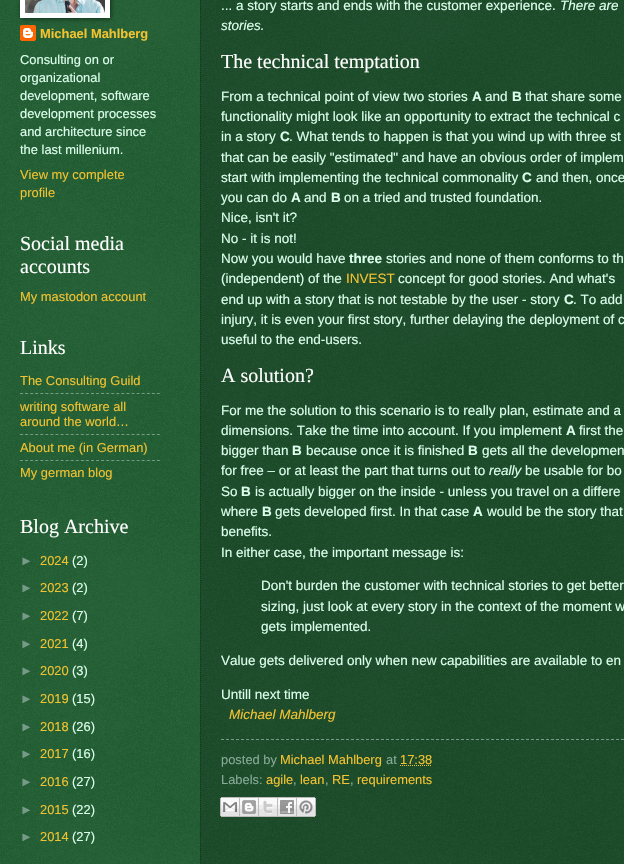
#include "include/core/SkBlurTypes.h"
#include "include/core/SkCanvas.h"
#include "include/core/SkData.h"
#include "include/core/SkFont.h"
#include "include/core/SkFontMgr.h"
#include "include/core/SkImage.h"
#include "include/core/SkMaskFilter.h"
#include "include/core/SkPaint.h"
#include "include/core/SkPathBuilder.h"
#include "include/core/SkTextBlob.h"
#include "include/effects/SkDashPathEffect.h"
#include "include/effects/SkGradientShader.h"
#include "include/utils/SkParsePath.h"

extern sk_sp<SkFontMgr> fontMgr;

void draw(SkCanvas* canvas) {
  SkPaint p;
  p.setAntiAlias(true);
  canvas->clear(SkColorSetRGB(0, 68, 19));
  canvas->drawImageRect(SkImages::DeferredFromEncodedData(SkData::MakeFromFileName("images/1.png")), SkRect::MakeLTRB(0, 0, 624, 864), SkSamplingOptions());
  canvas->drawImageRect(SkImages::DeferredFromEncodedData(SkData::MakeFromFileName("images/3.png")), SkRect::MakeLTRB(20, 25, 36, 41), SkSamplingOptions());
  p.setColor(SkColorSetARGB(128, 0, 0, 0));
  p.setMaskFilter(SkMaskFilter::MakeBlur(kNormal_SkBlurStyle, 2.5f));
  canvas->drawRect(SkRect::MakeLTRB(21, -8, 111, 19), p);
  p.setMaskFilter(nullptr);
  p.setColor(SK_ColorWHITE);
  canvas->drawRect(SkRect::MakeLTRB(20, 0, 110, 18), p);
  canvas->drawImageRect(SkImages::DeferredFromEncodedData(SkData::MakeFromFileName("images/2.png")), SkRect::MakeLTRB(25, 0, 105, 13), SkSamplingOptions());
  p.setStyle(SkPaint::kStroke_Style);
  p.setStrokeWidth(1);
  p.setColor(SkColorSetRGB(119, 153, 135));
  p.setPathEffect(SkDashPathEffect::Make({{3, 2.07f}}, 0));
  canvas->drawPath(SkPathBuilder().moveTo(20, 393.5f).lineTo(160, 393.5f).detach(), p);
  p.setPathEffect(nullptr);
  p.setPathEffect(SkDashPathEffect::Make({{3, 2.07f}}, 0));
  canvas->drawPath(SkPathBuilder().moveTo(20, 434.5f).lineTo(160, 434.5f).detach(), p);
  p.setPathEffect(nullptr);
  p.setPathEffect(SkDashPathEffect::Make({{3, 2.07f}}, 0));
  canvas->drawPath(SkPathBuilder().moveTo(20, 460.5f).lineTo(160, 460.5f).detach(), p);
  p.setPathEffect(nullptr);
  p.setStyle(SkPaint::kFill_Style);
  p.setColor(SkColorSetARGB(51, 0, 0, 0));
  canvas->drawRect(SkRect::MakeLTRB(200, 0, 624, 864), p);
  p.setStyle(SkPaint::kStroke_Style);
  p.setColor(SkColorSetRGB(17, 51, 33));
  p.setPathEffect(SkDashPathEffect::Make({{1, 1}}, 0));
  canvas->drawPath(SkPathBuilder().moveTo(200.5f, -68).lineTo(200.5f, 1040).detach(), p);
  p.setPathEffect(nullptr);
  p.setColor(SkColorSetRGB(119, 153, 135));
  p.setPathEffect(SkDashPathEffect::Make({{3, 2}}, 0));
  canvas->drawPath(SkPathBuilder().moveTo(221, 739.5f).lineTo(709, 739.5f).detach(), p);
  p.setPathEffect(nullptr);
  p.setColor(SkColorSetRGB(241, 194, 50));
  p.setPathEffect(SkDashPathEffect::Make({{1, 1}}, 0));
  canvas->drawPath(SkPathBuilder().moveTo(400, 765.5f).lineTo(432, 765.5f).detach(), p);
  p.setPathEffect(nullptr);
  canvas->drawImageRect(SkImages::DeferredFromEncodedData(SkData::MakeFromFileName("images/4.png")), SkRect::MakeLTRB(220, 797, 240, 817), SkSamplingOptions());
  canvas->drawImageRect(SkImages::DeferredFromEncodedData(SkData::MakeFromFileName("images/5.png")), SkRect::MakeLTRB(240, 797, 259, 817), SkSamplingOptions());
  canvas->drawImageRect(SkImages::DeferredFromEncodedData(SkData::MakeFromFileName("images/6.png")), SkRect::MakeLTRB(259, 797, 278, 817), SkSamplingOptions());
  canvas->drawImageRect(SkImages::DeferredFromEncodedData(SkData::MakeFromFileName("images/7.png")), SkRect::MakeLTRB(278, 797, 297, 817), SkSamplingOptions());
  canvas->drawImageRect(SkImages::DeferredFromEncodedData(SkData::MakeFromFileName("images/8.png")), SkRect::MakeLTRB(297, 797, 316, 817), SkSamplingOptions());
  SkFont font1(fontMgr->matchFamilyStyle("Liberation Sans", SkFontStyle::Bold()), 12.9f);
  font1.setSubpixel(true);
  p.setStyle(SkPaint::kFill_Style);
  canvas->drawString("Michael Mahlberg", 40, 38, font1, p);
  SkFont font2(fontMgr->matchFamilyStyle("Liberation Sans", SkFontStyle::Normal()), 12.9f);
  font2.setSubpixel(true);
  p.setColor(SkColorSetRGB(221, 255, 237));
  canvas->drawString("Consulting on or", 20, 64, font2, p);
  canvas->drawString("organizational", 20, 82, font2, p);
  canvas->drawString("development, software", 20, 100, font2, p);
  canvas->drawString("development processes", 20, 118, font2, p);
  canvas->drawString("and architecture since", 20, 136, font2, p);
  canvas->drawString("the last millenium.", 20, 154, font2, p);
  p.setColor(SkColorSetRGB(241, 194, 50));
  canvas->drawString("View my complete", 20, 179, font2, p);
  canvas->drawString("profile", 20, 197, font2, p);
  SkFont font3(fontMgr->matchFamilyStyle("Liberation Serif", SkFontStyle::Normal()), 20);
  font3.setSubpixel(true);
  p.setColor(SK_ColorWHITE);
  canvas->drawString("Social media", 20, 250, font3, p);
  canvas->drawString("accounts", 20, 273, font3, p);
  p.setColor(SkColorSetRGB(241, 194, 50));
  canvas->drawString("My mastodon account", 20, 301, font2, p);
  p.setColor(SK_ColorWHITE);
  canvas->drawString("Links", 20, 354, font3, p);
  p.setColor(SkColorSetRGB(241, 194, 50));
  canvas->drawString("The Consulting Guild", 20, 385, font2, p);
  canvas->drawString("writing software all", 20, 411, font2, p);
  canvas->drawString("around the world…", 20, 426, font2, p);
  canvas->drawString("About me (in German)", 20, 452, font2, p);
  canvas->drawString("My german blog", 20, 477, font2, p);
  p.setColor(SK_ColorWHITE);
  canvas->drawString("Blog Archive", 20, 533, font3, p);
  p.setColor(SkColorSetRGB(119, 153, 135));
  canvas->drawString("►", 20, 565, font2, p);
  p.setColor(SkColorSetRGB(241, 194, 50));
  canvas->drawString("2024", 40, 565, font2, p);
  p.setColor(SkColorSetRGB(221, 255, 237));
  canvas->drawString("(2)", 72, 565, font2, p);
  p.setColor(SkColorSetRGB(119, 153, 135));
  canvas->drawString("►", 20, 592, font2, p);
  p.setColor(SkColorSetRGB(241, 194, 50));
  canvas->drawString("2023", 40, 592, font2, p);
  p.setColor(SkColorSetRGB(221, 255, 237));
  canvas->drawString("(2)", 72, 592, font2, p);
  p.setColor(SkColorSetRGB(119, 153, 135));
  canvas->drawString("►", 20, 620, font2, p);
  p.setColor(SkColorSetRGB(241, 194, 50));
  canvas->drawString("2022", 40, 620, font2, p);
  p.setColor(SkColorSetRGB(221, 255, 237));
  canvas->drawString("(7)", 72, 620, font2, p);
  p.setColor(SkColorSetRGB(119, 153, 135));
  canvas->drawString("►", 20, 648, font2, p);
  p.setColor(SkColorSetRGB(241, 194, 50));
  canvas->drawString("2021", 40, 648, font2, p);
  p.setColor(SkColorSetRGB(221, 255, 237));
  canvas->drawString("(4)", 72, 648, font2, p);
  p.setColor(SkColorSetRGB(119, 153, 135));
  canvas->drawString("►", 20, 675, font2, p);
  p.setColor(SkColorSetRGB(241, 194, 50));
  canvas->drawString("2020", 40, 675, font2, p);
  p.setColor(SkColorSetRGB(221, 255, 237));
  canvas->drawString("(3)", 72, 675, font2, p);
  p.setColor(SkColorSetRGB(119, 153, 135));
  canvas->drawString("►", 20, 703, font2, p);
  p.setColor(SkColorSetRGB(241, 194, 50));
  canvas->drawString("2019", 40, 703, font2, p);
  p.setColor(SkColorSetRGB(221, 255, 237));
  canvas->drawString("(15)", 72, 703, font2, p);
  p.setColor(SkColorSetRGB(119, 153, 135));
  canvas->drawString("►", 20, 731, font2, p);
  p.setColor(SkColorSetRGB(241, 194, 50));
  canvas->drawString("2018", 40, 731, font2, p);
  p.setColor(SkColorSetRGB(221, 255, 237));
  canvas->drawString("(26)", 72, 731, font2, p);
  p.setColor(SkColorSetRGB(119, 153, 135));
  canvas->drawString("►", 20, 758, font2, p);
  p.setColor(SkColorSetRGB(241, 194, 50));
  canvas->drawString("2017", 40, 758, font2, p);
  p.setColor(SkColorSetRGB(221, 255, 237));
  canvas->drawString("(16)", 72, 758, font2, p);
  p.setColor(SkColorSetRGB(119, 153, 135));
  canvas->drawString("►", 20, 786, font2, p);
  p.setColor(SkColorSetRGB(241, 194, 50));
  canvas->drawString("2016", 40, 786, font2, p);
  p.setColor(SkColorSetRGB(221, 255, 237));
  canvas->drawString("(27)", 72, 786, font2, p);
  p.setColor(SkColorSetRGB(119, 153, 135));
  canvas->drawString("►", 20, 814, font2, p);
  p.setColor(SkColorSetRGB(241, 194, 50));
  canvas->drawString("2015", 40, 814, font2, p);
  p.setColor(SkColorSetRGB(221, 255, 237));
  canvas->drawString("(22)", 72, 814, font2, p);
  p.setColor(SkColorSetRGB(119, 153, 135));
  canvas->drawString("►", 20, 841, font2, p);
  p.setColor(SkColorSetRGB(241, 194, 50));
  canvas->drawString("2014", 40, 841, font2, p);
  p.setColor(SkColorSetRGB(221, 255, 237));
  canvas->drawString("(27)", 72, 841, font2, p);
  SkFont font4(fontMgr->matchFamilyStyle("Liberation Sans", SkFontStyle::Normal()), 13.5f);
  font4.setSubpixel(true);
  canvas->drawString("... a story starts and ends with the customer experience.", 221, 10, font4, p);
  SkFont font5(fontMgr->matchFamilyStyle("Liberation Sans", SkFontStyle::Italic()), 13.5f);
  font5.setSubpixel(true);
  canvas->drawString("There are", 560, 10, font5, p);
  canvas->drawString("stories.", 221, 30, font5, p);
  p.setColor(SK_ColorWHITE);
  canvas->drawString("The technical temptation", 221, 68, font3, p);
  p.setColor(SkColorSetRGB(221, 255, 237));
  canvas->drawString("From a technical point of view two stories", 221, 101, font4, p);
  SkFont font6(fontMgr->matchFamilyStyle("Liberation Sans", SkFontStyle::Bold()), 13.5f);
  font6.setSubpixel(true);
  canvas->drawString("A", 472, 101, font6, p);
  canvas->drawString("and", 485, 101, font4, p);
  canvas->drawString("B", 512, 101, font6, p);
  canvas->drawString("that share some", 525, 101, font4, p);
  canvas->drawString("functionality might look like an opportunity to extract the technical c", 221, 121, font4, p);
  canvas->drawString("in a story", 221, 141, font4, p);
  canvas->drawString("C", 280, 141, font6, p);
  canvas->drawString(". What tends to happen is that you wind up with three st", 289, 141, font4, p);
  canvas->drawString("that can be easily \"estimated\" and have an obvious order of implem", 221, 162, font4, p);
  canvas->drawString("start with implementing the technical commonality", 221, 182, font4, p);
  canvas->drawString("C", 522, 182, font6, p);
  canvas->drawString("and then, once", 536, 182, font4, p);
  canvas->drawString("you can do", 221, 202, font4, p);
  canvas->drawString("A", 291, 202, font6, p);
  canvas->drawString("and", 304, 202, font4, p);
  canvas->drawString("B", 331, 202, font6, p);
  canvas->drawString("on a tried and trusted foundation.", 344, 202, font4, p);
  canvas->drawString("Nice, isn't it?", 221, 222, font4, p);
  canvas->drawString("No - it is not!", 221, 243, font4, p);
  canvas->drawString("Now you would have", 221, 263, font4, p);
  canvas->drawString("three", 349, 263, font6, p);
  canvas->drawString("stories and none of them conforms to th", 386, 263, font4, p);
  canvas->drawString("(independent) of the", 221, 283, font4, p);
  p.setColor(SkColorSetRGB(241, 194, 50));
  canvas->drawString("INVEST", 346, 283, font4, p);
  p.setColor(SkColorSetRGB(221, 255, 237));
  canvas->drawString("concept for good stories. And what's", 398, 283, font4, p);
  canvas->drawString("end up with a story that is not testable by the user - story", 221, 304, font4, p);
  canvas->drawString("C", 564, 304, font6, p);
  canvas->drawString(". To add", 573, 304, font4, p);
  canvas->drawString("injury, it is even your first story, further delaying the deployment of c", 221, 324, font4, p);
  canvas->drawString("useful to the end-users.", 221, 344, font4, p);
  p.setColor(SK_ColorWHITE);
  canvas->drawString("A solution?", 221, 382, font3, p);
  p.setColor(SkColorSetRGB(221, 255, 237));
  canvas->drawString("For me the solution to this scenario is to really plan, estimate and a", 221, 415, font4, p);
  canvas->drawString("dimensions. Take the time into account. If you implement", 221, 435, font4, p);
  canvas->drawString("A", 566, 435, font6, p);
  canvas->drawString("first the", 579, 435, font4, p);
  canvas->drawString("bigger than", 221, 455, font4, p);
  canvas->drawString("B", 292, 455, font6, p);
  canvas->drawString("because once it is finished", 306, 455, font4, p);
  canvas->drawString("B", 468, 455, font6, p);
  canvas->drawString("gets all the developmen", 482, 455, font4, p);
  canvas->drawString("for free – or at least the part that turns out to", 221, 475, font4, p);
  canvas->drawString("really", 489, 475, font5, p);
  canvas->drawString("be usable for bo", 525, 475, font4, p);
  canvas->drawString("So", 221, 496, font4, p);
  canvas->drawString("B", 241, 496, font6, p);
  canvas->drawString("is actually bigger on the inside - unless you travel on a differe", 255, 496, font4, p);
  canvas->drawString("where", 221, 516, font4, p);
  canvas->drawString("B", 262, 516, font6, p);
  canvas->drawString("gets developed first. In that case", 275, 516, font4, p);
  canvas->drawString("A", 473, 516, font6, p);
  canvas->drawString("would be the story that", 487, 516, font4, p);
  canvas->drawString("benefits.", 221, 536, font4, p);
  canvas->drawString("In either case, the important message is:", 221, 557, font4, p);
  canvas->drawString("Don't burden the customer with technical stories to get better", 261, 590, font4, p);
  canvas->drawString("sizing, just look at every story in the context of the moment w", 261, 611, font4, p);
  canvas->drawString("gets implemented.", 261, 631, font4, p);
  canvas->drawString("Value gets delivered only when new capabilities are available to en", 221, 665, font4, p);
  canvas->drawString("Untill next time", 221, 699, font4, p);
  p.setColor(SkColorSetRGB(241, 194, 50));
  canvas->drawString("Michael Mahlberg", 229, 719, font5, p);
  p.setColor(SkColorSetRGB(136, 170, 152));
  canvas->drawString("posted by", 221, 764, font2, p);
  p.setColor(SkColorSetRGB(241, 194, 50));
  canvas->drawString("Michael Mahlberg", 280, 764, font2, p);
  p.setColor(SkColorSetRGB(136, 170, 152));
  canvas->drawString("at", 386, 764, font2, p);
  p.setColor(SkColorSetRGB(241, 194, 50));
  canvas->drawString("17:38", 400, 764, font2, p);
  p.setColor(SkColorSetRGB(136, 170, 152));
  canvas->drawString("Labels:", 221, 784, font2, p);
  p.setColor(SkColorSetRGB(241, 194, 50));
  canvas->drawString("agile", 266, 784, font2, p);
  p.setColor(SkColorSetRGB(136, 170, 152));
  canvas->drawString(",", 293, 784, font2, p);
  p.setColor(SkColorSetRGB(241, 194, 50));
  canvas->drawString("lean", 300, 784, font2, p);
  p.setColor(SkColorSetRGB(136, 170, 152));
  canvas->drawString(",", 325, 784, font2, p);
  p.setColor(SkColorSetRGB(241, 194, 50));
  canvas->drawString("RE", 332, 784, font2, p);
  p.setColor(SkColorSetRGB(136, 170, 152));
  canvas->drawString(",", 350, 784, font2, p);
  p.setColor(SkColorSetRGB(241, 194, 50));
  canvas->drawString("requirements", 357, 784, font2, p);
}
